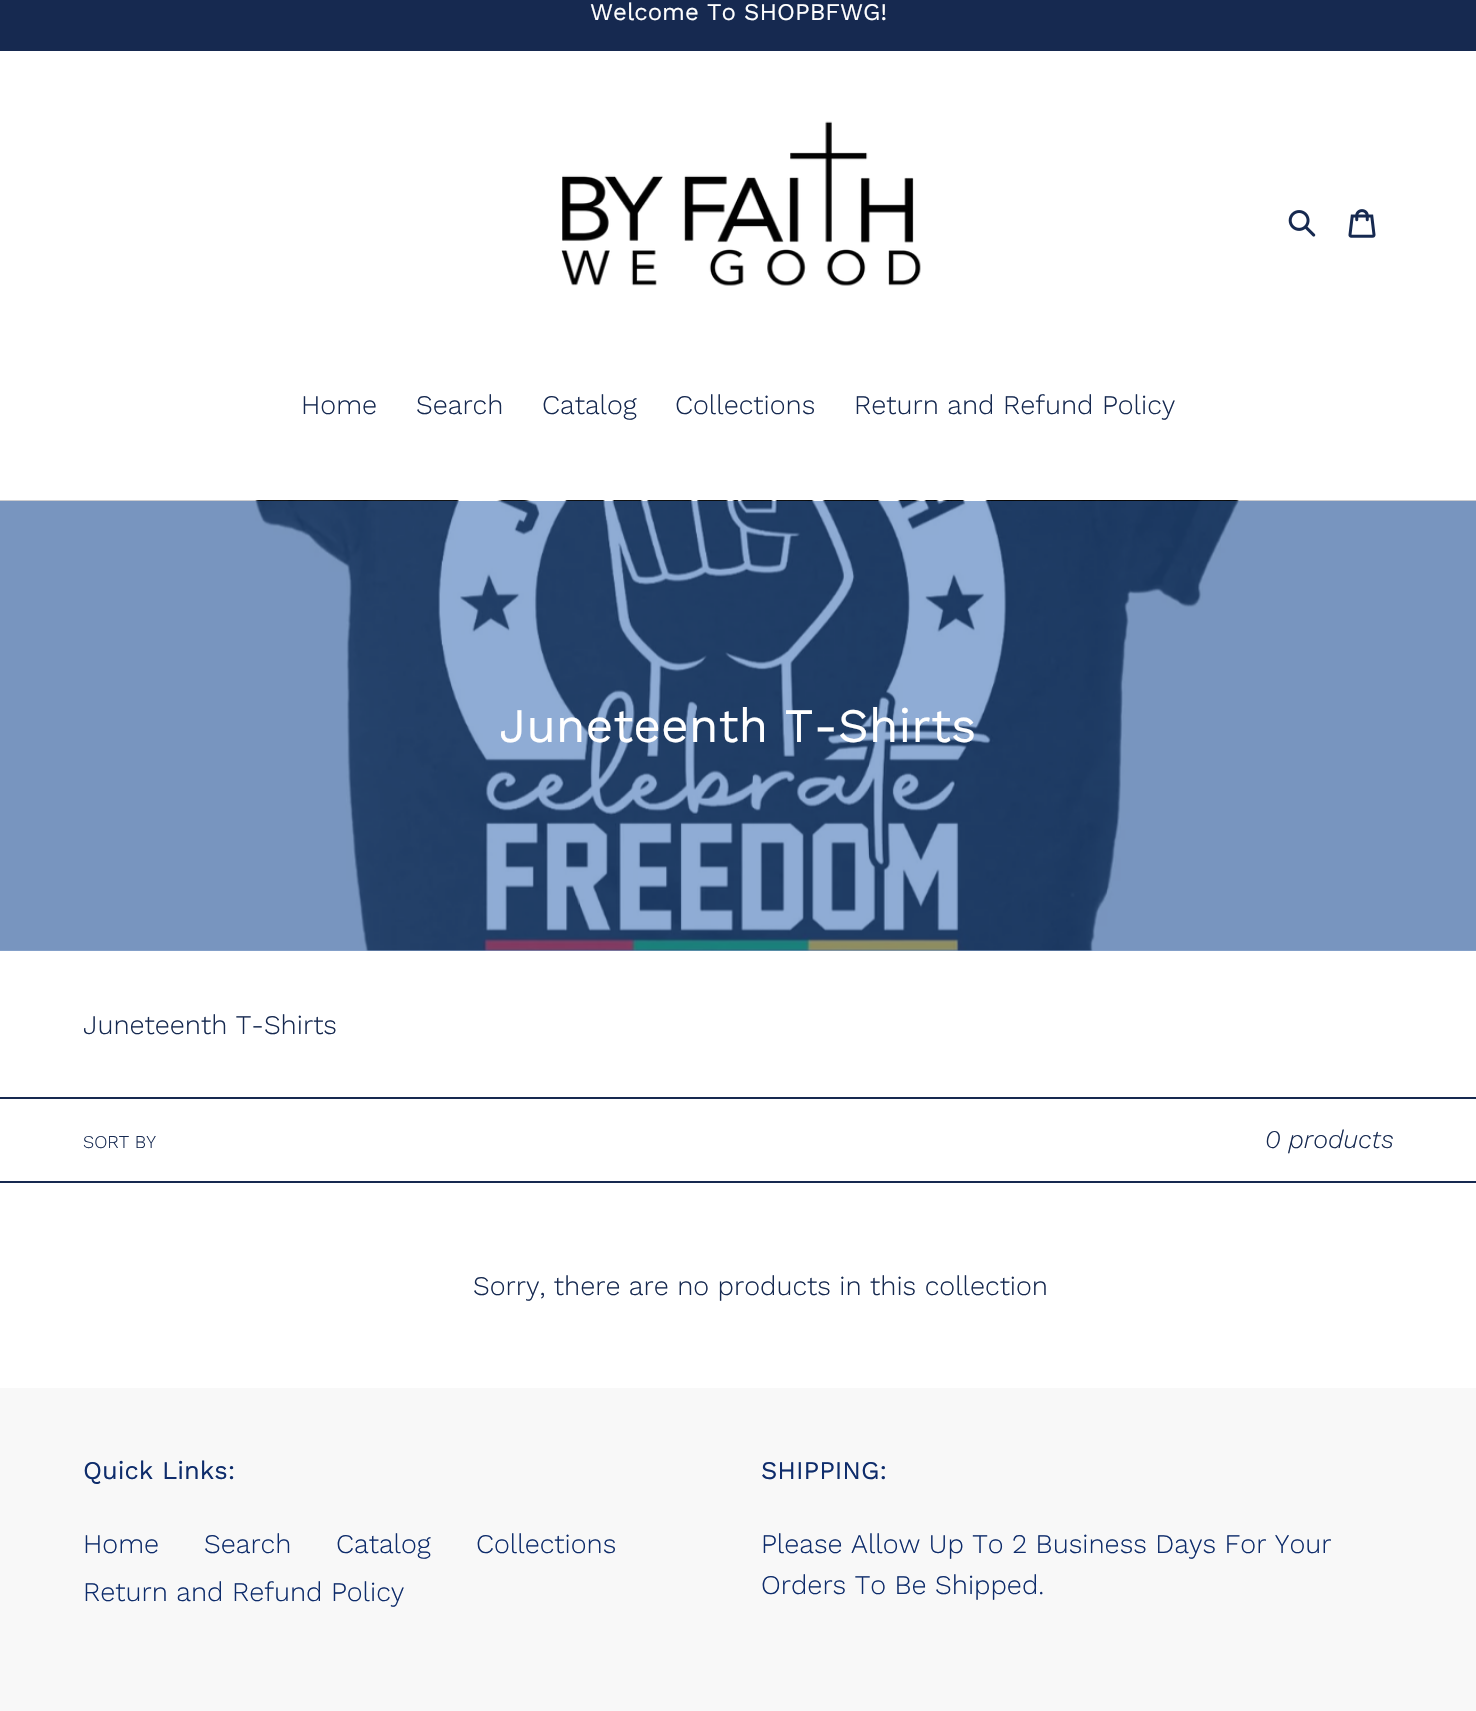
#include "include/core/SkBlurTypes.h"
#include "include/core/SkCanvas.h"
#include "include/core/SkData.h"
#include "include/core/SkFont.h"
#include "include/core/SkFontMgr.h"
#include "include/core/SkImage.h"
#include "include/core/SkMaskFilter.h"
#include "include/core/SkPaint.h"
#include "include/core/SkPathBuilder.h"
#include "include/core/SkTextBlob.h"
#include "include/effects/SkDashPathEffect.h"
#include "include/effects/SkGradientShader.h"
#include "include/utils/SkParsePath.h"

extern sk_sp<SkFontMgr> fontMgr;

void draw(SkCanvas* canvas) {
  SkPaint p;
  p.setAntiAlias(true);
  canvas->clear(SK_ColorWHITE);
  p.setColor(SkColorSetRGB(143, 172, 213));
  canvas->drawRect(SkRect::MakeLTRB(0, 950, 1476, 951), p);
  p.setColor(SkColorSetRGB(22, 41, 80));
  canvas->drawRect(SkRect::MakeLTRB(0, 0, 1476, 51), p);
  canvas->drawImageRect(SkImages::DeferredFromEncodedData(SkData::MakeFromFileName("images/1.png")), SkRect::MakeLTRB(561, 121, 921, 286), SkSamplingOptions());
  canvas->drawImageRect(SkImages::DeferredFromEncodedData(SkData::MakeFromFileName("images/2.png")), SkRect::MakeLTRB(1288, 210, 1316, 237), SkSamplingOptions());
  canvas->drawImageRect(SkImages::DeferredFromEncodedData(SkData::MakeFromFileName("images/3.png")), SkRect::MakeLTRB(1348, 209, 1376, 238), SkSamplingOptions());
  canvas->drawImageRect(SkImages::DeferredFromEncodedData(SkData::MakeFromFileName("images/4.png")), SkRect::MakeLTRB(0, 500, 1476, 951), SkSamplingOptions());
  canvas->drawRect(SkRect::MakeLTRB(0, 1097, 1476, 1099), p);
  canvas->drawRect(SkRect::MakeLTRB(0, 1181, 1476, 1183), p);
  p.setColor(SkColorSetRGB(248, 248, 248));
  canvas->drawRect(SkRect::MakeLTRB(0, 1388, 1476, 1711), p);
  SkFont font1(fontMgr->matchFamilyStyle("Work Sans", SkFontStyle::Normal()), 24);
  font1.setSubpixel(true);
  p.setColor(SK_ColorWHITE);
  canvas->drawString("Welcome To SHOPBFWG!", 590, 20, font1, p);
  SkFont font2(fontMgr->matchFamilyStyle("Work Sans", SkFontStyle(300, SkFontStyle::kNormal_Width, SkFontStyle::kUpright_Slant)), 27);
  font2.setSubpixel(true);
  p.setColor(SkColorSetRGB(22, 41, 80));
  canvas->drawString("Home", 301, 414, font2, p);
  canvas->drawString("Search", 416, 414, font2, p);
  canvas->drawString("Catalog", 542, 414, font2, p);
  canvas->drawString("Collections", 675, 414, font2, p);
  canvas->drawString("Return and Refund Policy", 854, 414, font2, p);
  SkFont font3(fontMgr->matchFamilyStyle("Work Sans", SkFontStyle::Normal()), 48);
  font3.setSubpixel(true);
  p.setColor(SK_ColorWHITE);
  canvas->drawString("Juneteenth T-Shirts", 499, 742, font3, p);
  p.setColor(SkColorSetRGB(22, 41, 80));
  canvas->drawString("Juneteenth T-Shirts", 83, 1034, font2, p);
  SkFont font4(fontMgr->matchFamilyStyle("Work Sans", SkFontStyle(300, SkFontStyle::kNormal_Width, SkFontStyle::kUpright_Slant)), 18);
  font4.setSubpixel(true);
  canvas->drawString("SORT BY", 83, 1148, font4, p);
  SkFont font5(fontMgr->matchFamilyStyle("Work Sans", SkFontStyle(300, SkFontStyle::kNormal_Width, SkFontStyle::kItalic_Slant)), 25.5f);
  font5.setSubpixel(true);
  canvas->drawString("0 products", 1265, 1148, font5, p);
  canvas->drawString("Sorry, there are no products in this collection", 473, 1295, font2, p);
  SkFont font6(fontMgr->matchFamilyStyle("Work Sans", SkFontStyle::Normal()), 25.5f);
  font6.setSubpixel(true);
  p.setColor(SkColorSetRGB(14, 44, 107));
  canvas->drawString("Quick Links:", 83, 1479, font6, p);
  canvas->drawString("Home", 83, 1553, font2, p);
  canvas->drawString("Search", 204, 1553, font2, p);
  canvas->drawString("Catalog", 336, 1553, font2, p);
  canvas->drawString("Collections", 476, 1553, font2, p);
  canvas->drawString("Return and Refund Policy", 83, 1601, font2, p);
  canvas->drawString("SHIPPING:", 761, 1479, font6, p);
  canvas->drawString("Please Allow Up To 2 Business Days For Your", 761, 1553, font2, p);
  canvas->drawString("Orders To Be Shipped.", 761, 1594, font2, p);
}
